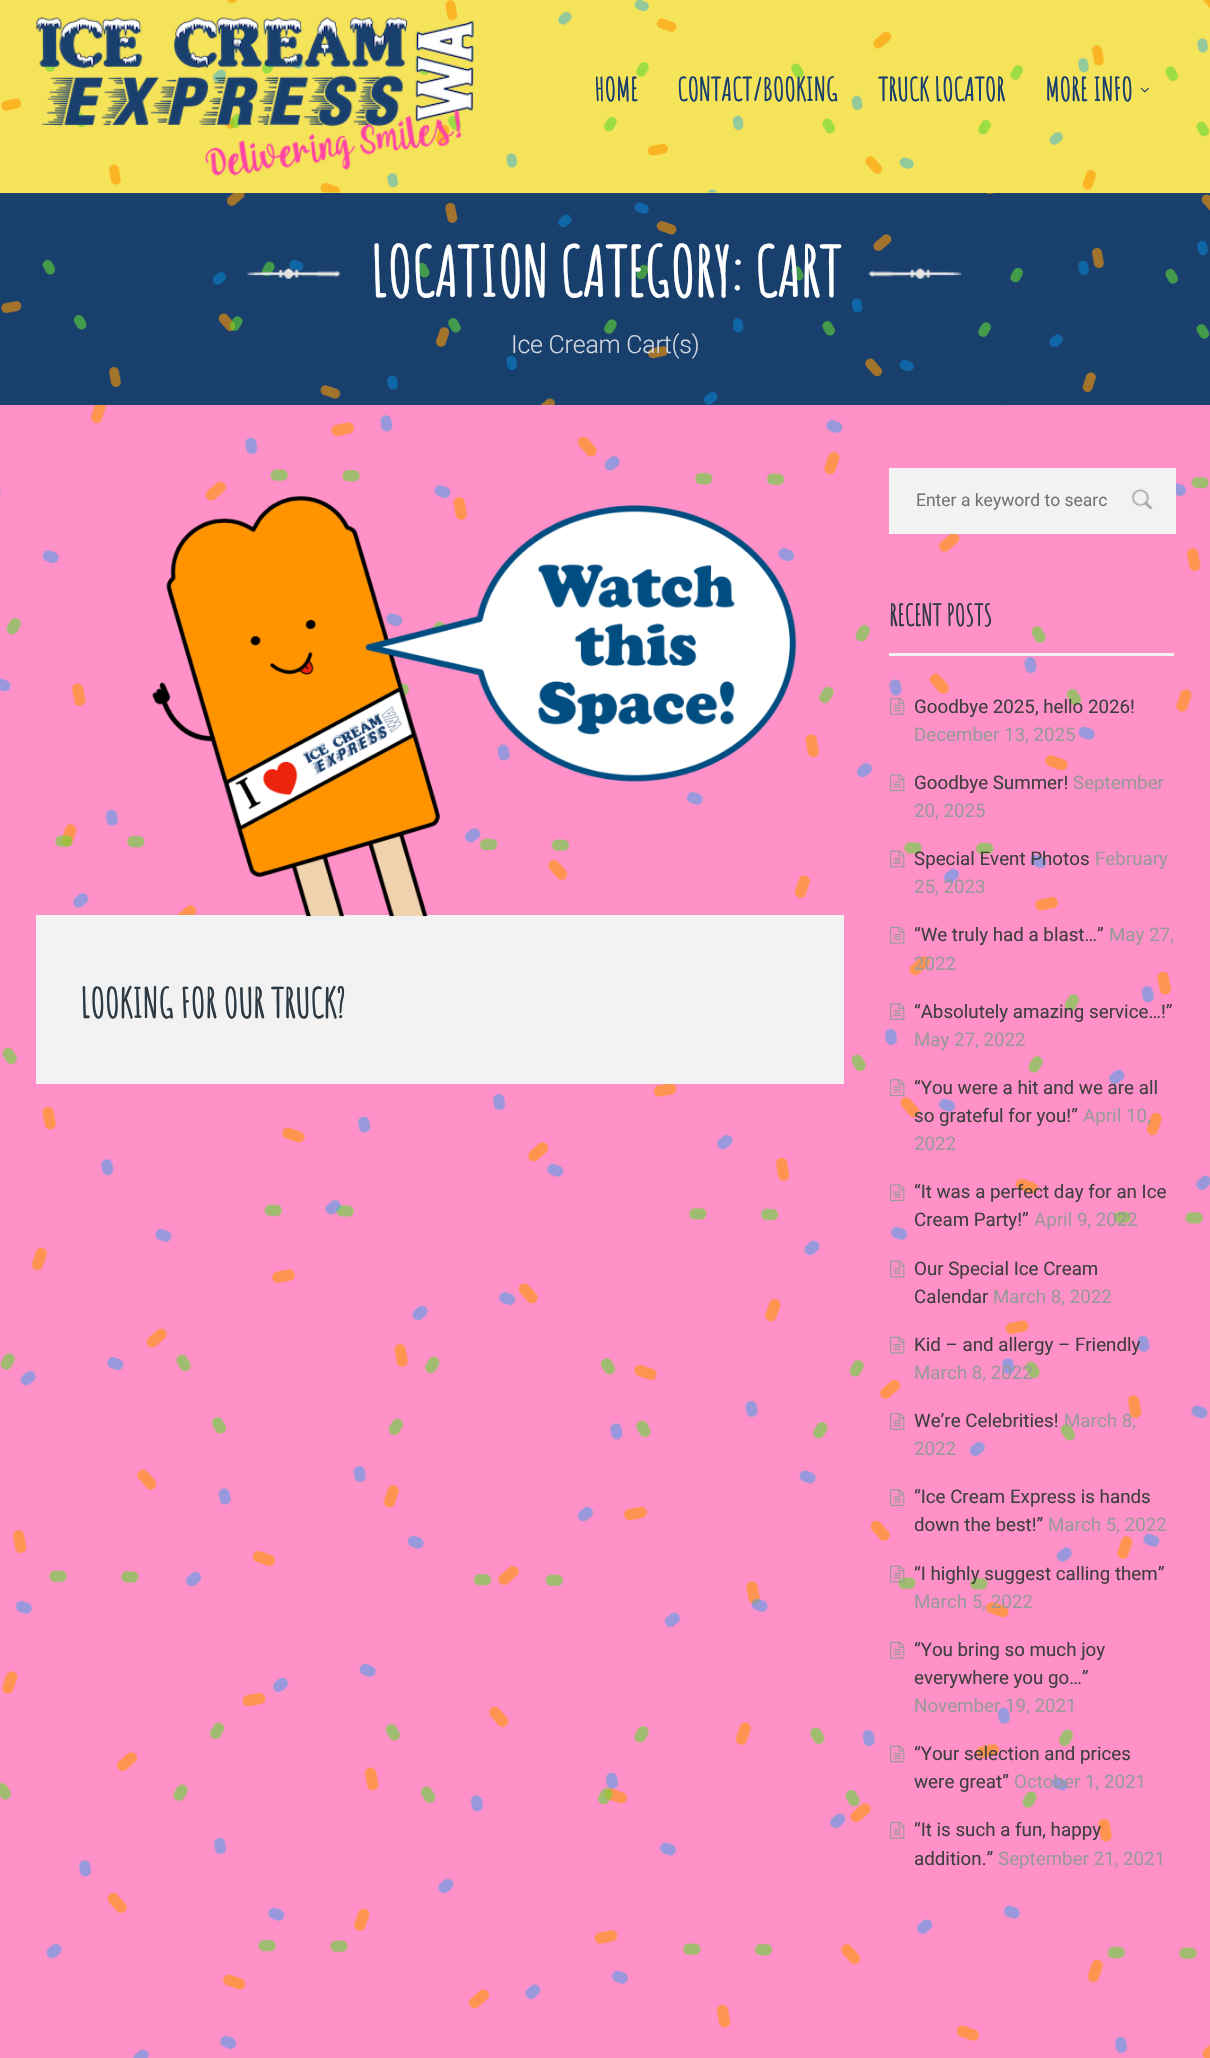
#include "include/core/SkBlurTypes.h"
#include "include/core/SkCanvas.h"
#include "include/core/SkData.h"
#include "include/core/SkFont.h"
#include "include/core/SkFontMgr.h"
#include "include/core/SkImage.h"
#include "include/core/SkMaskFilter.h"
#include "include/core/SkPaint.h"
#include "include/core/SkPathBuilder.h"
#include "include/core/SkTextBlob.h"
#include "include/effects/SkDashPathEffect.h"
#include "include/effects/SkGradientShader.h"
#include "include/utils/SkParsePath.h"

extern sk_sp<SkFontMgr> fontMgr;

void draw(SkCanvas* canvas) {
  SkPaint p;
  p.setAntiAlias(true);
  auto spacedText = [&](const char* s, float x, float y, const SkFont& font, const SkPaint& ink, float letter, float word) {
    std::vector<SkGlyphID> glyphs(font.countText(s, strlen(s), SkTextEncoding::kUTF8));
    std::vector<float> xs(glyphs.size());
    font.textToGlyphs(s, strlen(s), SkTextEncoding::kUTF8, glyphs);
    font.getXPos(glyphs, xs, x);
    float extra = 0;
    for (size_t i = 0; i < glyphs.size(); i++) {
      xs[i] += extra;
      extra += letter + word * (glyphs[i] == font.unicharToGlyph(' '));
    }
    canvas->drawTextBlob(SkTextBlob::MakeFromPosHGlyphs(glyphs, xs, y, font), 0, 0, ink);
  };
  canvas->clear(SkColorSetRGB(255, 145, 200));
  canvas->drawImageRect(SkImages::DeferredFromEncodedData(SkData::MakeFromFileName("images/1.png")), SkRect::MakeLTRB(0, 405, 1210, 2058), SkSamplingOptions());
  p.setColor(SkColorSetRGB(245, 227, 89));
  canvas->drawRect(SkRect::MakeLTRB(0, 0, 1210, 193), p);
  canvas->drawImageRect(SkImages::DeferredFromEncodedData(SkData::MakeFromFileName("images/2.png")), SkRect::MakeLTRB(0, 0, 1210, 193), SkSamplingOptions());
  canvas->drawImageRect(SkImages::DeferredFromEncodedData(SkData::MakeFromFileName("images/3.png")), SkRect::MakeLTRB(36, 17, 474, 176), SkSamplingOptions());
  canvas->drawImageRect(SkImages::DeferredFromEncodedData(SkData::MakeFromFileName("images/4.png")), SkRect::MakeLTRB(1140, 87, 1149, 93), SkSamplingOptions());
  p.setColor(SkColorSetRGB(25, 63, 109));
  canvas->drawRect(SkRect::MakeLTRB(0, 193, 1210, 405), p);
  canvas->drawImageRect(SkImages::DeferredFromEncodedData(SkData::MakeFromFileName("images/5.png")), SkRect::MakeLTRB(0, 193, 1210, 405), SkSamplingOptions());
  canvas->drawImageRect(SkImages::DeferredFromEncodedData(SkData::MakeFromFileName("images/6.png")), SkRect::MakeLTRB(247, 267, 341, 279), SkSamplingOptions());
  canvas->drawImageRect(SkImages::DeferredFromEncodedData(SkData::MakeFromFileName("images/7.png")), SkRect::MakeLTRB(868, 267, 962, 279), SkSamplingOptions());
  p.setColor(SkColorSetRGB(242, 242, 242));
  canvas->drawRect(SkRect::MakeLTRB(36, 915, 844, 1084), p);
  canvas->drawImageRect(SkImages::DeferredFromEncodedData(SkData::MakeFromFileName("images/8.png")), SkRect::MakeLTRB(152, 495, 797, 917), SkSamplingOptions());
  canvas->drawRect(SkRect::MakeLTRB(889, 468, 1176, 534), p);
  canvas->drawImageRect(SkImages::DeferredFromEncodedData(SkData::MakeFromFileName("images/9.png")), SkRect::MakeLTRB(1131, 488, 1153, 510), SkSamplingOptions());
  canvas->drawRect(SkRect::MakeLTRB(889, 653, 1174, 656), p);
  canvas->drawImageRect(SkImages::DeferredFromEncodedData(SkData::MakeFromFileName("images/10.png")), SkRect::MakeLTRB(890, 698, 905, 715), SkSamplingOptions());
  canvas->drawImageRect(SkImages::DeferredFromEncodedData(SkData::MakeFromFileName("images/11.png")), SkRect::MakeLTRB(890, 774, 905, 792), SkSamplingOptions());
  canvas->drawImageRect(SkImages::DeferredFromEncodedData(SkData::MakeFromFileName("images/12.png")), SkRect::MakeLTRB(890, 850, 905, 868), SkSamplingOptions());
  canvas->drawImageRect(SkImages::DeferredFromEncodedData(SkData::MakeFromFileName("images/13.png")), SkRect::MakeLTRB(890, 926, 905, 944), SkSamplingOptions());
  canvas->drawImageRect(SkImages::DeferredFromEncodedData(SkData::MakeFromFileName("images/10.png")), SkRect::MakeLTRB(890, 1003, 905, 1020), SkSamplingOptions());
  canvas->drawImageRect(SkImages::DeferredFromEncodedData(SkData::MakeFromFileName("images/11.png")), SkRect::MakeLTRB(890, 1079, 905, 1097), SkSamplingOptions());
  canvas->drawImageRect(SkImages::DeferredFromEncodedData(SkData::MakeFromFileName("images/11.png")), SkRect::MakeLTRB(890, 1184, 905, 1202), SkSamplingOptions());
  canvas->drawImageRect(SkImages::DeferredFromEncodedData(SkData::MakeFromFileName("images/14.png")), SkRect::MakeLTRB(890, 1260, 905, 1278), SkSamplingOptions());
  canvas->drawImageRect(SkImages::DeferredFromEncodedData(SkData::MakeFromFileName("images/13.png")), SkRect::MakeLTRB(890, 1336, 905, 1354), SkSamplingOptions());
  canvas->drawImageRect(SkImages::DeferredFromEncodedData(SkData::MakeFromFileName("images/10.png")), SkRect::MakeLTRB(890, 1413, 905, 1430), SkSamplingOptions());
  canvas->drawImageRect(SkImages::DeferredFromEncodedData(SkData::MakeFromFileName("images/11.png")), SkRect::MakeLTRB(890, 1489, 905, 1507), SkSamplingOptions());
  canvas->drawImageRect(SkImages::DeferredFromEncodedData(SkData::MakeFromFileName("images/15.png")), SkRect::MakeLTRB(890, 1565, 905, 1583), SkSamplingOptions());
  canvas->drawImageRect(SkImages::DeferredFromEncodedData(SkData::MakeFromFileName("images/13.png")), SkRect::MakeLTRB(890, 1641, 905, 1659), SkSamplingOptions());
  canvas->drawImageRect(SkImages::DeferredFromEncodedData(SkData::MakeFromFileName("images/14.png")), SkRect::MakeLTRB(890, 1745, 905, 1763), SkSamplingOptions());
  canvas->drawImageRect(SkImages::DeferredFromEncodedData(SkData::MakeFromFileName("images/13.png")), SkRect::MakeLTRB(890, 1821, 905, 1839), SkSamplingOptions());
  SkFont font1(fontMgr->matchFamilyStyle("Amatic SC", SkFontStyle::Bold()), 31.25f);
  font1.setSubpixel(true);
  p.setColor(SkColorSetRGB(25, 63, 109));
  canvas->drawString("HOME", 594, 101, font1, p);
  canvas->drawString("CONTACT/BOOKING", 677, 101, font1, p);
  canvas->drawString("TRUCK LOCATOR", 878, 101, font1, p);
  canvas->drawString("MORE INFO", 1045, 101, font1, p);
  SkFont font2(fontMgr->matchFamilyStyle("Amatic SC", SkFontStyle::Bold()), 67.5f);
  font2.setSubpixel(true);
  p.setColor(SK_ColorWHITE);
  canvas->drawString("LOCATION CATEGORY: CART", 370, 297, font2, p);
  SkFont font3(fontMgr->matchFamilyStyle("Roboto", SkFontStyle(300, SkFontStyle::kNormal_Width, SkFontStyle::kUpright_Slant)), 25);
  font3.setSubpixel(true);
  p.setColor(SkColorSetRGB(210, 217, 225));
  spacedText("Ice Cream Cart(s)", 511, 353, font3, p, -0.25f, 0);
  SkFont font4(fontMgr->matchFamilyStyle("Amatic SC", SkFontStyle::Bold()), 40);
  font4.setSubpixel(true);
  p.setColor(SkColorSetRGB(46, 58, 67));
  canvas->drawString("LOOKING FOR OUR TRUCK?", 80, 1018, font4, p);
  SkFont font5(fontMgr->matchFamilyStyle("Roboto", SkFontStyle::Normal()), 17.5f);
  font5.setSubpixel(true);
  p.setColor(SkColorSetRGB(117, 117, 117));
  canvas->drawString("Enter a keyword to searc", 916, 506, font5, p);
  SkFont font6(fontMgr->matchFamilyStyle("Amatic SC", SkFontStyle::Bold()), 29);
  font6.setSubpixel(true);
  p.setColor(SkColorSetRGB(46, 58, 67));
  canvas->drawString("RECENT POSTS", 889, 626, font6, p);
  SkFont font7(fontMgr->matchFamilyStyle("Roboto", SkFontStyle::Normal()), 18.75f);
  font7.setSubpixel(true);
  p.setColor(SkColorSetRGB(63, 63, 63));
  canvas->drawString("Goodbye 2025, hello 2026!", 914, 713, font7, p);
  p.setColor(SkColorSetRGB(153, 153, 153));
  canvas->drawString("December 13, 2025", 914, 741, font7, p);
  p.setColor(SkColorSetRGB(63, 63, 63));
  canvas->drawString("Goodbye Summer!", 914, 789, font7, p);
  p.setColor(SkColorSetRGB(153, 153, 153));
  canvas->drawString("September", 1073, 789, font7, p);
  canvas->drawString("20, 2025", 914, 817, font7, p);
  p.setColor(SkColorSetRGB(63, 63, 63));
  canvas->drawString("Special Event Photos", 914, 865, font7, p);
  p.setColor(SkColorSetRGB(153, 153, 153));
  canvas->drawString("February", 1095, 865, font7, p);
  canvas->drawString("25, 2023", 914, 893, font7, p);
  p.setColor(SkColorSetRGB(63, 63, 63));
  canvas->drawString("“We truly had a blast…”", 914, 941, font7, p);
  p.setColor(SkColorSetRGB(153, 153, 153));
  canvas->drawString("May 27,", 1109, 941, font7, p);
  canvas->drawString("2022", 914, 970, font7, p);
  p.setColor(SkColorSetRGB(63, 63, 63));
  canvas->drawString("“Absolutely amazing service…!”", 914, 1018, font7, p);
  p.setColor(SkColorSetRGB(153, 153, 153));
  canvas->drawString("May 27, 2022", 914, 1046, font7, p);
  p.setColor(SkColorSetRGB(63, 63, 63));
  canvas->drawString("“You were a hit and we are all", 914, 1094, font7, p);
  canvas->drawString("so grateful for you!”", 914, 1122, font7, p);
  p.setColor(SkColorSetRGB(153, 153, 153));
  canvas->drawString("April 10,", 1083, 1122, font7, p);
  canvas->drawString("2022", 914, 1150, font7, p);
  p.setColor(SkColorSetRGB(63, 63, 63));
  canvas->drawString("“It was a perfect day for an Ice", 914, 1198, font7, p);
  canvas->drawString("Cream Party!”", 914, 1226, font7, p);
  p.setColor(SkColorSetRGB(153, 153, 153));
  canvas->drawString("April 9, 2022", 1034, 1226, font7, p);
  p.setColor(SkColorSetRGB(63, 63, 63));
  canvas->drawString("Our Special Ice Cream", 914, 1275, font7, p);
  canvas->drawString("Calendar", 914, 1303, font7, p);
  p.setColor(SkColorSetRGB(153, 153, 153));
  canvas->drawString("March 8, 2022", 993, 1303, font7, p);
  p.setColor(SkColorSetRGB(63, 63, 63));
  canvas->drawString("Kid – and allergy – Friendly", 914, 1351, font7, p);
  p.setColor(SkColorSetRGB(153, 153, 153));
  canvas->drawString("March 8, 2022", 914, 1379, font7, p);
  p.setColor(SkColorSetRGB(63, 63, 63));
  canvas->drawString("We’re Celebrities!", 914, 1427, font7, p);
  p.setColor(SkColorSetRGB(153, 153, 153));
  canvas->drawString("March 8,", 1064, 1427, font7, p);
  canvas->drawString("2022", 914, 1455, font7, p);
  p.setColor(SkColorSetRGB(63, 63, 63));
  canvas->drawString("“Ice Cream Express is hands", 914, 1503, font7, p);
  canvas->drawString("down the best!”", 914, 1531, font7, p);
  p.setColor(SkColorSetRGB(153, 153, 153));
  canvas->drawString("March 5, 2022", 1048, 1531, font7, p);
  p.setColor(SkColorSetRGB(63, 63, 63));
  canvas->drawString("“I highly suggest calling them”", 914, 1580, font7, p);
  p.setColor(SkColorSetRGB(153, 153, 153));
  canvas->drawString("March 5, 2022", 914, 1608, font7, p);
  p.setColor(SkColorSetRGB(63, 63, 63));
  canvas->drawString("“You bring so much joy", 914, 1656, font7, p);
  canvas->drawString("everywhere you go…”", 914, 1684, font7, p);
  p.setColor(SkColorSetRGB(153, 153, 153));
  canvas->drawString("November 19, 2021", 914, 1712, font7, p);
  p.setColor(SkColorSetRGB(63, 63, 63));
  canvas->drawString("“Your selection and prices", 914, 1760, font7, p);
  canvas->drawString("were great”", 914, 1788, font7, p);
  p.setColor(SkColorSetRGB(153, 153, 153));
  canvas->drawString("October 1, 2021", 1014, 1788, font7, p);
  p.setColor(SkColorSetRGB(63, 63, 63));
  canvas->drawString("“It is such a fun, happy", 914, 1836, font7, p);
  canvas->drawString("addition.”", 914, 1865, font7, p);
  p.setColor(SkColorSetRGB(153, 153, 153));
  canvas->drawString("September 21, 2021", 998, 1865, font7, p);
}
